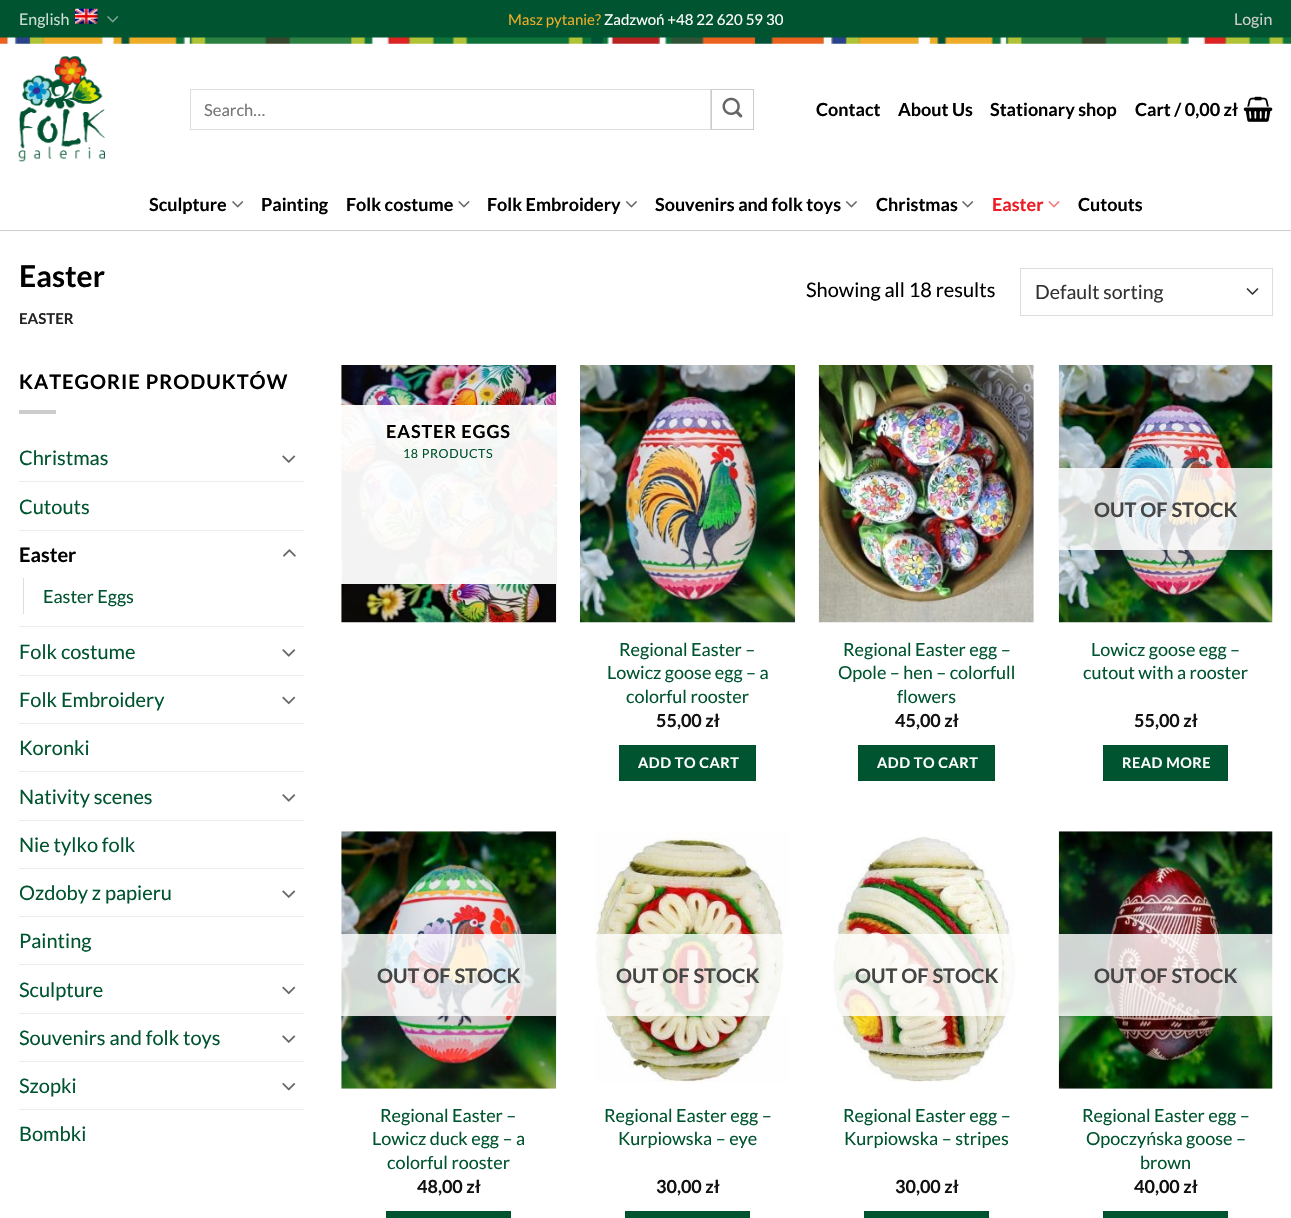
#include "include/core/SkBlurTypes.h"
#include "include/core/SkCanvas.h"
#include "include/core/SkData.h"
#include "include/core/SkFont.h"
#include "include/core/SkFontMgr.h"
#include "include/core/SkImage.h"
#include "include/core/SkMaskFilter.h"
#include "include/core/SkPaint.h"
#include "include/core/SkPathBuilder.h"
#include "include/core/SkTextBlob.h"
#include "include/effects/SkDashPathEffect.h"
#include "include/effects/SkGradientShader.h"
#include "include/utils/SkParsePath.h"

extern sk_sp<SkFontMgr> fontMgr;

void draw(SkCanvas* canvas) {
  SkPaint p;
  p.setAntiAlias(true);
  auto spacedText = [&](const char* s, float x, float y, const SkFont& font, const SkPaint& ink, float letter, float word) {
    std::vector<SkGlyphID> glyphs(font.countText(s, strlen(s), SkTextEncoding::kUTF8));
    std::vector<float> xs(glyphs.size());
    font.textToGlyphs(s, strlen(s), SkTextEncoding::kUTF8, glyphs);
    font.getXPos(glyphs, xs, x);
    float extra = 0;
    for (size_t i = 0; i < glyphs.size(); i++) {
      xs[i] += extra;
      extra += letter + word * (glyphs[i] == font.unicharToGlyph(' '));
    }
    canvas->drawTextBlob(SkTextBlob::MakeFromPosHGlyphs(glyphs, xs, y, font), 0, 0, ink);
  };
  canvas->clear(SK_ColorWHITE);
  p.setColor(SkColorSetRGB(0, 84, 48));
  canvas->drawRect(SkRect::MakeLTRB(0, 0, 1291, 38), p);
  canvas->drawImageRect(SkImages::DeferredFromEncodedData(SkData::MakeFromFileName("images/1.png")), SkRect::MakeLTRB(75, 8, 98, 24), SkSamplingOptions());
  canvas->drawImageRect(SkImages::DeferredFromEncodedData(SkData::MakeFromFileName("images/2.png")), SkRect::MakeLTRB(107, 16, 119, 23), SkSamplingOptions());
  canvas->drawImageRect(SkImages::DeferredFromEncodedData(SkData::MakeFromFileName("images/3.png")), SkRect::MakeLTRB(0, 37, 1291, 44), SkSamplingOptions());
  canvas->drawImageRect(SkImages::DeferredFromEncodedData(SkData::MakeFromFileName("images/4.png")), SkRect::MakeLTRB(18, 56, 105, 162), SkSamplingOptions());
  p.setStyle(SkPaint::kStroke_Style);
  p.setStrokeWidth(1);
  p.setColor(SkColorSetRGB(221, 221, 221));
  canvas->drawRect(SkRect::MakeLTRB(190.5f, 89.5f, 710.5f, 129.5f), p);
  p.setColor(SkColorSetRGB(204, 204, 204));
  canvas->drawRect(SkRect::MakeLTRB(711.5f, 89.5f, 753.5f, 129.5f), p);
  canvas->drawImageRect(SkImages::DeferredFromEncodedData(SkData::MakeFromFileName("images/5.png")), SkRect::MakeLTRB(722, 97, 743, 118), SkSamplingOptions());
  canvas->drawImageRect(SkImages::DeferredFromEncodedData(SkData::MakeFromFileName("images/6.png")), SkRect::MakeLTRB(1243, 96, 1273, 122), SkSamplingOptions());
  p.setStyle(SkPaint::kFill_Style);
  canvas->drawRect(SkRect::MakeLTRB(0, 230, 1291, 231), p);
  canvas->drawImageRect(SkImages::DeferredFromEncodedData(SkData::MakeFromFileName("images/7.png")), SkRect::MakeLTRB(232, 201, 244, 208), SkSamplingOptions());
  canvas->drawImageRect(SkImages::DeferredFromEncodedData(SkData::MakeFromFileName("images/8.png")), SkRect::MakeLTRB(458, 201, 470, 208), SkSamplingOptions());
  canvas->drawImageRect(SkImages::DeferredFromEncodedData(SkData::MakeFromFileName("images/9.png")), SkRect::MakeLTRB(626, 201, 637, 208), SkSamplingOptions());
  canvas->drawImageRect(SkImages::DeferredFromEncodedData(SkData::MakeFromFileName("images/9.png")), SkRect::MakeLTRB(846, 201, 857, 208), SkSamplingOptions());
  canvas->drawImageRect(SkImages::DeferredFromEncodedData(SkData::MakeFromFileName("images/7.png")), SkRect::MakeLTRB(962, 201, 974, 208), SkSamplingOptions());
  canvas->drawImageRect(SkImages::DeferredFromEncodedData(SkData::MakeFromFileName("images/10.png")), SkRect::MakeLTRB(1048, 201, 1060, 208), SkSamplingOptions());
  p.setStyle(SkPaint::kStroke_Style);
  p.setStrokeWidth(1.7f);
  p.setStrokeCap(SkPaint::kRound_Cap);
  p.setStrokeJoin(SkPaint::kRound_Join);
  p.setColor(SkColorSetRGB(51, 51, 51));
  canvas->drawPath(SkPathBuilder().moveTo(1247.5f, 289).lineTo(1252.5f, 294).lineTo(1257.5f, 289).detach(), p);
  p.setStrokeWidth(1);
  p.setStrokeCap(SkPaint::kButt_Cap);
  p.setStrokeJoin(SkPaint::kMiter_Join);
  p.setColor(SkColorSetRGB(221, 221, 221));
  canvas->drawRect(SkRect::MakeLTRB(1020.5f, 268.5f, 1272.5f, 315.5f), p);
  p.setStyle(SkPaint::kFill_Style);
  p.setColor(SkColorSetRGB(204, 204, 204));
  canvas->drawRect(SkRect::MakeLTRB(19, 410, 56, 414), p);
  canvas->drawImageRect(SkImages::DeferredFromEncodedData(SkData::MakeFromFileName("images/11.png")), SkRect::MakeLTRB(282, 455, 296, 463), SkSamplingOptions());
  p.setColor(SkColorSetRGB(236, 236, 236));
  canvas->drawRect(SkRect::MakeLTRB(19, 481, 304, 482), p);
  canvas->drawRect(SkRect::MakeLTRB(19, 530, 304, 531), p);
  canvas->drawImageRect(SkImages::DeferredFromEncodedData(SkData::MakeFromFileName("images/12.png")), SkRect::MakeLTRB(283, 549, 296, 557), SkSamplingOptions());
  p.setColor(SkColorSetRGB(221, 221, 221));
  canvas->drawRect(SkRect::MakeLTRB(23, 578, 24, 614), p);
  p.setColor(SkColorSetRGB(236, 236, 236));
  canvas->drawRect(SkRect::MakeLTRB(19, 626, 304, 627), p);
  canvas->drawImageRect(SkImages::DeferredFromEncodedData(SkData::MakeFromFileName("images/13.png")), SkRect::MakeLTRB(282, 649, 296, 657), SkSamplingOptions());
  canvas->drawRect(SkRect::MakeLTRB(19, 675, 304, 676), p);
  canvas->drawImageRect(SkImages::DeferredFromEncodedData(SkData::MakeFromFileName("images/14.png")), SkRect::MakeLTRB(282, 696, 296, 705), SkSamplingOptions());
  canvas->drawRect(SkRect::MakeLTRB(19, 723, 304, 724), p);
  canvas->drawRect(SkRect::MakeLTRB(19, 771, 304, 772), p);
  canvas->drawImageRect(SkImages::DeferredFromEncodedData(SkData::MakeFromFileName("images/13.png")), SkRect::MakeLTRB(282, 794, 296, 802), SkSamplingOptions());
  canvas->drawRect(SkRect::MakeLTRB(19, 820, 304, 821), p);
  canvas->drawRect(SkRect::MakeLTRB(19, 868, 304, 869), p);
  canvas->drawImageRect(SkImages::DeferredFromEncodedData(SkData::MakeFromFileName("images/11.png")), SkRect::MakeLTRB(282, 890, 296, 898), SkSamplingOptions());
  canvas->drawRect(SkRect::MakeLTRB(19, 916, 304, 917), p);
  canvas->drawRect(SkRect::MakeLTRB(19, 964, 304, 965), p);
  canvas->drawImageRect(SkImages::DeferredFromEncodedData(SkData::MakeFromFileName("images/14.png")), SkRect::MakeLTRB(282, 986, 296, 995), SkSamplingOptions());
  canvas->drawRect(SkRect::MakeLTRB(19, 1013, 304, 1014), p);
  canvas->drawImageRect(SkImages::DeferredFromEncodedData(SkData::MakeFromFileName("images/11.png")), SkRect::MakeLTRB(282, 1035, 296, 1043), SkSamplingOptions());
  canvas->drawRect(SkRect::MakeLTRB(19, 1061, 304, 1062), p);
  canvas->drawImageRect(SkImages::DeferredFromEncodedData(SkData::MakeFromFileName("images/15.png")), SkRect::MakeLTRB(282, 1083, 296, 1091), SkSamplingOptions());
  canvas->drawRect(SkRect::MakeLTRB(19, 1109, 304, 1110), p);
  canvas->drawImageRect(SkImages::DeferredFromEncodedData(SkData::MakeFromFileName("images/16.png")), SkRect::MakeLTRB(341, 365, 557, 623), SkSamplingOptions());
  p.setColor(SkColorSetARGB(242, 255, 255, 255));
  canvas->drawRect(SkRect::MakeLTRB(341, 405, 556, 584), p);
  canvas->drawImageRect(SkImages::DeferredFromEncodedData(SkData::MakeFromFileName("images/17.png")), SkRect::MakeLTRB(580, 365, 795, 623), SkSamplingOptions());
  p.setColor(SkColorSetRGB(0, 84, 48));
  canvas->drawRect(SkRect::MakeLTRB(619.5f, 745.5f, 755.5f, 780.5f), p);
  p.setStyle(SkPaint::kStroke_Style);
  p.setColor(SkColorSetRGB(0, 80, 46));
  canvas->drawRect(SkRect::MakeLTRB(619.5f, 745.5f, 755.5f, 780.5f), p);
  canvas->drawImageRect(SkImages::DeferredFromEncodedData(SkData::MakeFromFileName("images/18.png")), SkRect::MakeLTRB(818, 365, 1034, 623), SkSamplingOptions());
  p.setStyle(SkPaint::kFill_Style);
  p.setColor(SkColorSetRGB(0, 84, 48));
  canvas->drawRect(SkRect::MakeLTRB(858.5f, 745.5f, 994.5f, 780.5f), p);
  p.setStyle(SkPaint::kStroke_Style);
  p.setColor(SkColorSetRGB(0, 80, 46));
  canvas->drawRect(SkRect::MakeLTRB(858.5f, 745.5f, 994.5f, 780.5f), p);
  canvas->drawImageRect(SkImages::DeferredFromEncodedData(SkData::MakeFromFileName("images/19.png")), SkRect::MakeLTRB(1058, 365, 1273, 623), SkSamplingOptions());
  p.setStyle(SkPaint::kFill_Style);
  p.setColor(SkColorSetARGB(207, 255, 255, 255));
  canvas->drawRect(SkRect::MakeLTRB(1059, 468, 1273, 550), p);
  p.setColor(SkColorSetRGB(0, 84, 48));
  canvas->drawRect(SkRect::MakeLTRB(1103.5f, 745.5f, 1227.5f, 780.5f), p);
  p.setStyle(SkPaint::kStroke_Style);
  p.setColor(SkColorSetRGB(0, 80, 46));
  canvas->drawRect(SkRect::MakeLTRB(1103.5f, 745.5f, 1227.5f, 780.5f), p);
  canvas->drawImageRect(SkImages::DeferredFromEncodedData(SkData::MakeFromFileName("images/20.png")), SkRect::MakeLTRB(341, 831, 557, 1089), SkSamplingOptions());
  p.setStyle(SkPaint::kFill_Style);
  p.setColor(SkColorSetARGB(207, 255, 255, 255));
  canvas->drawRect(SkRect::MakeLTRB(341, 934, 556, 1016), p);
  p.setColor(SkColorSetRGB(0, 84, 48));
  canvas->drawRect(SkRect::MakeLTRB(386.5f, 1211.5f, 510.5f, 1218.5f), p);
  p.setStyle(SkPaint::kStroke_Style);
  p.setColor(SkColorSetRGB(0, 80, 46));
  canvas->drawRect(SkRect::MakeLTRB(386.5f, 1211.5f, 510.5f, 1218.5f), p);
  canvas->drawImageRect(SkImages::DeferredFromEncodedData(SkData::MakeFromFileName("images/21.png")), SkRect::MakeLTRB(594, 832, 789, 1082), SkSamplingOptions());
  p.setStyle(SkPaint::kFill_Style);
  p.setColor(SkColorSetARGB(207, 255, 255, 255));
  canvas->drawRect(SkRect::MakeLTRB(594, 934, 789, 1016), p);
  p.setColor(SkColorSetRGB(0, 84, 48));
  canvas->drawRect(SkRect::MakeLTRB(625.5f, 1211.5f, 749.5f, 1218.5f), p);
  p.setStyle(SkPaint::kStroke_Style);
  p.setColor(SkColorSetRGB(0, 80, 46));
  canvas->drawRect(SkRect::MakeLTRB(625.5f, 1211.5f, 749.5f, 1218.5f), p);
  canvas->drawImageRect(SkImages::DeferredFromEncodedData(SkData::MakeFromFileName("images/22.png")), SkRect::MakeLTRB(832, 836, 1018, 1082), SkSamplingOptions());
  p.setStyle(SkPaint::kFill_Style);
  p.setColor(SkColorSetARGB(207, 255, 255, 255));
  canvas->drawRect(SkRect::MakeLTRB(832, 934, 1018, 1016), p);
  p.setColor(SkColorSetRGB(0, 84, 48));
  canvas->drawRect(SkRect::MakeLTRB(864.5f, 1211.5f, 988.5f, 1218.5f), p);
  p.setStyle(SkPaint::kStroke_Style);
  p.setColor(SkColorSetRGB(0, 80, 46));
  canvas->drawRect(SkRect::MakeLTRB(864.5f, 1211.5f, 988.5f, 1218.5f), p);
  canvas->drawImageRect(SkImages::DeferredFromEncodedData(SkData::MakeFromFileName("images/23.png")), SkRect::MakeLTRB(1058, 831, 1273, 1089), SkSamplingOptions());
  p.setStyle(SkPaint::kFill_Style);
  p.setColor(SkColorSetARGB(207, 255, 255, 255));
  canvas->drawRect(SkRect::MakeLTRB(1059, 934, 1273, 1016), p);
  p.setColor(SkColorSetRGB(0, 84, 48));
  canvas->drawRect(SkRect::MakeLTRB(1103.5f, 1211.5f, 1227.5f, 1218.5f), p);
  p.setStyle(SkPaint::kStroke_Style);
  p.setColor(SkColorSetRGB(0, 80, 46));
  canvas->drawRect(SkRect::MakeLTRB(1103.5f, 1211.5f, 1227.5f, 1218.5f), p);
  SkFont font1(fontMgr->matchFamilyStyle("Lato", SkFontStyle::Normal()), 16);
  font1.setSubpixel(true);
  p.setStyle(SkPaint::kFill_Style);
  p.setColor(SkColorSetRGB(204, 221, 214));
  canvas->drawString("English", 19, 25, font1, p);
  SkFont font2(fontMgr->matchFamilyStyle("Lato", SkFontStyle::Normal()), 15);
  font2.setSubpixel(true);
  p.setColor(SkColorSetRGB(238, 172, 41));
  canvas->drawString("Masz pytanie?", 508, 25, font2, p);
  p.setColor(SK_ColorWHITE);
  canvas->drawString("Zadzwoń +48 22 620 59 30", 604, 25, font2, p);
  p.setColor(SkColorSetRGB(204, 204, 204));
  canvas->drawString("Login", 1234, 25, font1, p);
  SkFont font3(fontMgr->matchFamilyStyle("Lato", SkFontStyle::Normal()), 16.5f);
  font3.setSubpixel(true);
  p.setColor(SkColorSetRGB(117, 117, 117));
  canvas->drawString("Search…", 204, 116, font3, p);
  SkFont font4(fontMgr->matchFamilyStyle("Lato", SkFontStyle::Bold()), 18);
  font4.setSubpixel(true);
  p.setColor(SK_ColorBLACK);
  canvas->drawString("Contact", 816, 116, font4, p);
  canvas->drawString("About Us", 898, 116, font4, p);
  canvas->drawString("Stationary shop", 990, 116, font4, p);
  canvas->drawString("Cart / 0,00 zł", 1135, 116, font4, p);
  canvas->drawString("Sculpture", 149, 211, font4, p);
  canvas->drawString("Painting", 261, 211, font4, p);
  canvas->drawString("Folk costume", 346, 211, font4, p);
  canvas->drawString("Folk Embroidery", 487, 211, font4, p);
  canvas->drawString("Souvenirs and folk toys", 655, 211, font4, p);
  canvas->drawString("Christmas", 876, 211, font4, p);
  p.setColor(SkColorSetRGB(237, 28, 36));
  canvas->drawString("Easter", 992, 211, font4, p);
  p.setColor(SK_ColorBLACK);
  canvas->drawString("Cutouts", 1078, 211, font4, p);
  SkFont font5(fontMgr->matchFamilyStyle("Lato", SkFontStyle::Bold()), 30);
  font5.setSubpixel(true);
  canvas->drawString("Easter", 19, 287, font5, p);
  SkFont font6(fontMgr->matchFamilyStyle("Lato", SkFontStyle::Bold()), 15);
  font6.setSubpixel(true);
  p.setColor(SkColorSetRGB(34, 34, 34));
  canvas->drawString("EASTER", 19, 324, font6, p);
  SkFont font7(fontMgr->matchFamilyStyle("Lato", SkFontStyle::Normal()), 20);
  font7.setSubpixel(true);
  p.setColor(SK_ColorBLACK);
  canvas->drawString("Showing all 18 results", 806, 297, font7, p);
  SkFont font8(fontMgr->matchFamilyStyle("Lato", SkFontStyle::Normal()), 19.5f);
  font8.setSubpixel(true);
  p.setColor(SkColorSetRGB(51, 51, 51));
  canvas->drawString("Default sorting", 1035, 299, font8, p);
  SkFont font9(fontMgr->matchFamilyStyle("Lato", SkFontStyle::Bold()), 20);
  font9.setSubpixel(true);
  p.setColor(SK_ColorBLACK);
  spacedText("KATEGORIE PRODUKTÓW", 19, 389, font9, p, 1, 0);
  p.setColor(SkColorSetRGB(0, 84, 48));
  canvas->drawString("Christmas", 19, 465, font7, p);
  canvas->drawString("Cutouts", 19, 514, font7, p);
  p.setColor(SK_ColorBLACK);
  canvas->drawString("Easter", 19, 562, font9, p);
  SkFont font10(fontMgr->matchFamilyStyle("Lato", SkFontStyle::Normal()), 18);
  font10.setSubpixel(true);
  p.setColor(SkColorSetRGB(0, 84, 48));
  canvas->drawString("Easter Eggs", 43, 603, font10, p);
  canvas->drawString("Folk costume", 19, 659, font7, p);
  canvas->drawString("Folk Embroidery", 19, 707, font7, p);
  canvas->drawString("Koronki", 19, 755, font7, p);
  canvas->drawString("Nativity scenes", 19, 804, font7, p);
  canvas->drawString("Nie tylko folk", 19, 852, font7, p);
  canvas->drawString("Ozdoby z papieru", 19, 900, font7, p);
  canvas->drawString("Painting", 19, 948, font7, p);
  canvas->drawString("Sculpture", 19, 997, font7, p);
  canvas->drawString("Souvenirs and folk toys", 19, 1045, font7, p);
  canvas->drawString("Szopki", 19, 1093, font7, p);
  canvas->drawString("Bombki", 19, 1141, font7, p);
  p.setColor(SK_ColorBLACK);
  spacedText("EASTER EGGS", 386, 438, font4, p, 0.9f, 0);
  SkFont font11(fontMgr->matchFamilyStyle("Lato", SkFontStyle::Normal()), 12.5f);
  font11.setSubpixel(true);
  p.setColor(SkColorSetRGB(0, 84, 48));
  spacedText("18 PRODUCTS", 403, 458, font11, p, 0.6f, 0);
  canvas->drawString("Regional Easter –", 619, 656, font10, p);
  canvas->drawString("Lowicz goose egg – a", 607, 679, font10, p);
  canvas->drawString("colorful rooster", 626, 703, font10, p);
  p.setColor(SkColorSetRGB(17, 17, 17));
  canvas->drawString("55,00 zł", 656, 727, font4, p);
  SkFont font12(fontMgr->matchFamilyStyle("Lato", SkFontStyle::Bold()), 14.5f);
  font12.setSubpixel(true);
  p.setColor(SK_ColorWHITE);
  spacedText("ADD TO CART", 638, 768, font12, p, 0.5f, 0);
  p.setColor(SkColorSetRGB(0, 84, 48));
  canvas->drawString("Regional Easter egg –", 843, 656, font10, p);
  canvas->drawString("Opole – hen – colorfull", 838, 679, font10, p);
  canvas->drawString("flowers", 897, 703, font10, p);
  p.setColor(SkColorSetRGB(17, 17, 17));
  canvas->drawString("45,00 zł", 895, 727, font4, p);
  p.setColor(SK_ColorWHITE);
  spacedText("ADD TO CART", 877, 768, font12, p, 0.5f, 0);
  p.setColor(SkColorSetRGB(69, 69, 69));
  canvas->drawString("OUT OF STOCK", 1094, 517, font9, p);
  p.setColor(SkColorSetRGB(0, 84, 48));
  canvas->drawString("Lowicz goose egg –", 1091, 656, font10, p);
  canvas->drawString("cutout with a rooster", 1083, 679, font10, p);
  p.setColor(SkColorSetRGB(17, 17, 17));
  canvas->drawString("55,00 zł", 1134, 727, font4, p);
  p.setColor(SK_ColorWHITE);
  spacedText("READ MORE", 1122, 768, font12, p, 0.5f, 0);
  p.setColor(SkColorSetRGB(69, 69, 69));
  canvas->drawString("OUT OF STOCK", 377, 983, font9, p);
  p.setColor(SkColorSetRGB(0, 84, 48));
  canvas->drawString("Regional Easter –", 380, 1122, font10, p);
  canvas->drawString("Lowicz duck egg – a", 372, 1145, font10, p);
  canvas->drawString("colorful rooster", 387, 1169, font10, p);
  p.setColor(SkColorSetRGB(17, 17, 17));
  canvas->drawString("48,00 zł", 417, 1193, font4, p);
  p.setColor(SkColorSetRGB(69, 69, 69));
  canvas->drawString("OUT OF STOCK", 616, 983, font9, p);
  p.setColor(SkColorSetRGB(0, 84, 48));
  canvas->drawString("Regional Easter egg –", 604, 1122, font10, p);
  canvas->drawString("Kurpiowska – eye", 618, 1145, font10, p);
  p.setColor(SkColorSetRGB(17, 17, 17));
  canvas->drawString("30,00 zł", 656, 1193, font4, p);
  p.setColor(SkColorSetRGB(69, 69, 69));
  canvas->drawString("OUT OF STOCK", 855, 983, font9, p);
  p.setColor(SkColorSetRGB(0, 84, 48));
  canvas->drawString("Regional Easter egg –", 843, 1122, font10, p);
  canvas->drawString("Kurpiowska – stripes", 844, 1145, font10, p);
  p.setColor(SkColorSetRGB(17, 17, 17));
  canvas->drawString("30,00 zł", 895, 1193, font4, p);
  p.setColor(SkColorSetRGB(69, 69, 69));
  canvas->drawString("OUT OF STOCK", 1094, 983, font9, p);
  p.setColor(SkColorSetRGB(0, 84, 48));
  canvas->drawString("Regional Easter egg –", 1082, 1122, font10, p);
  canvas->drawString("Opoczyńska goose –", 1086, 1145, font10, p);
  canvas->drawString("brown", 1140, 1169, font10, p);
  p.setColor(SkColorSetRGB(17, 17, 17));
  canvas->drawString("40,00 zł", 1134, 1193, font4, p);
}
